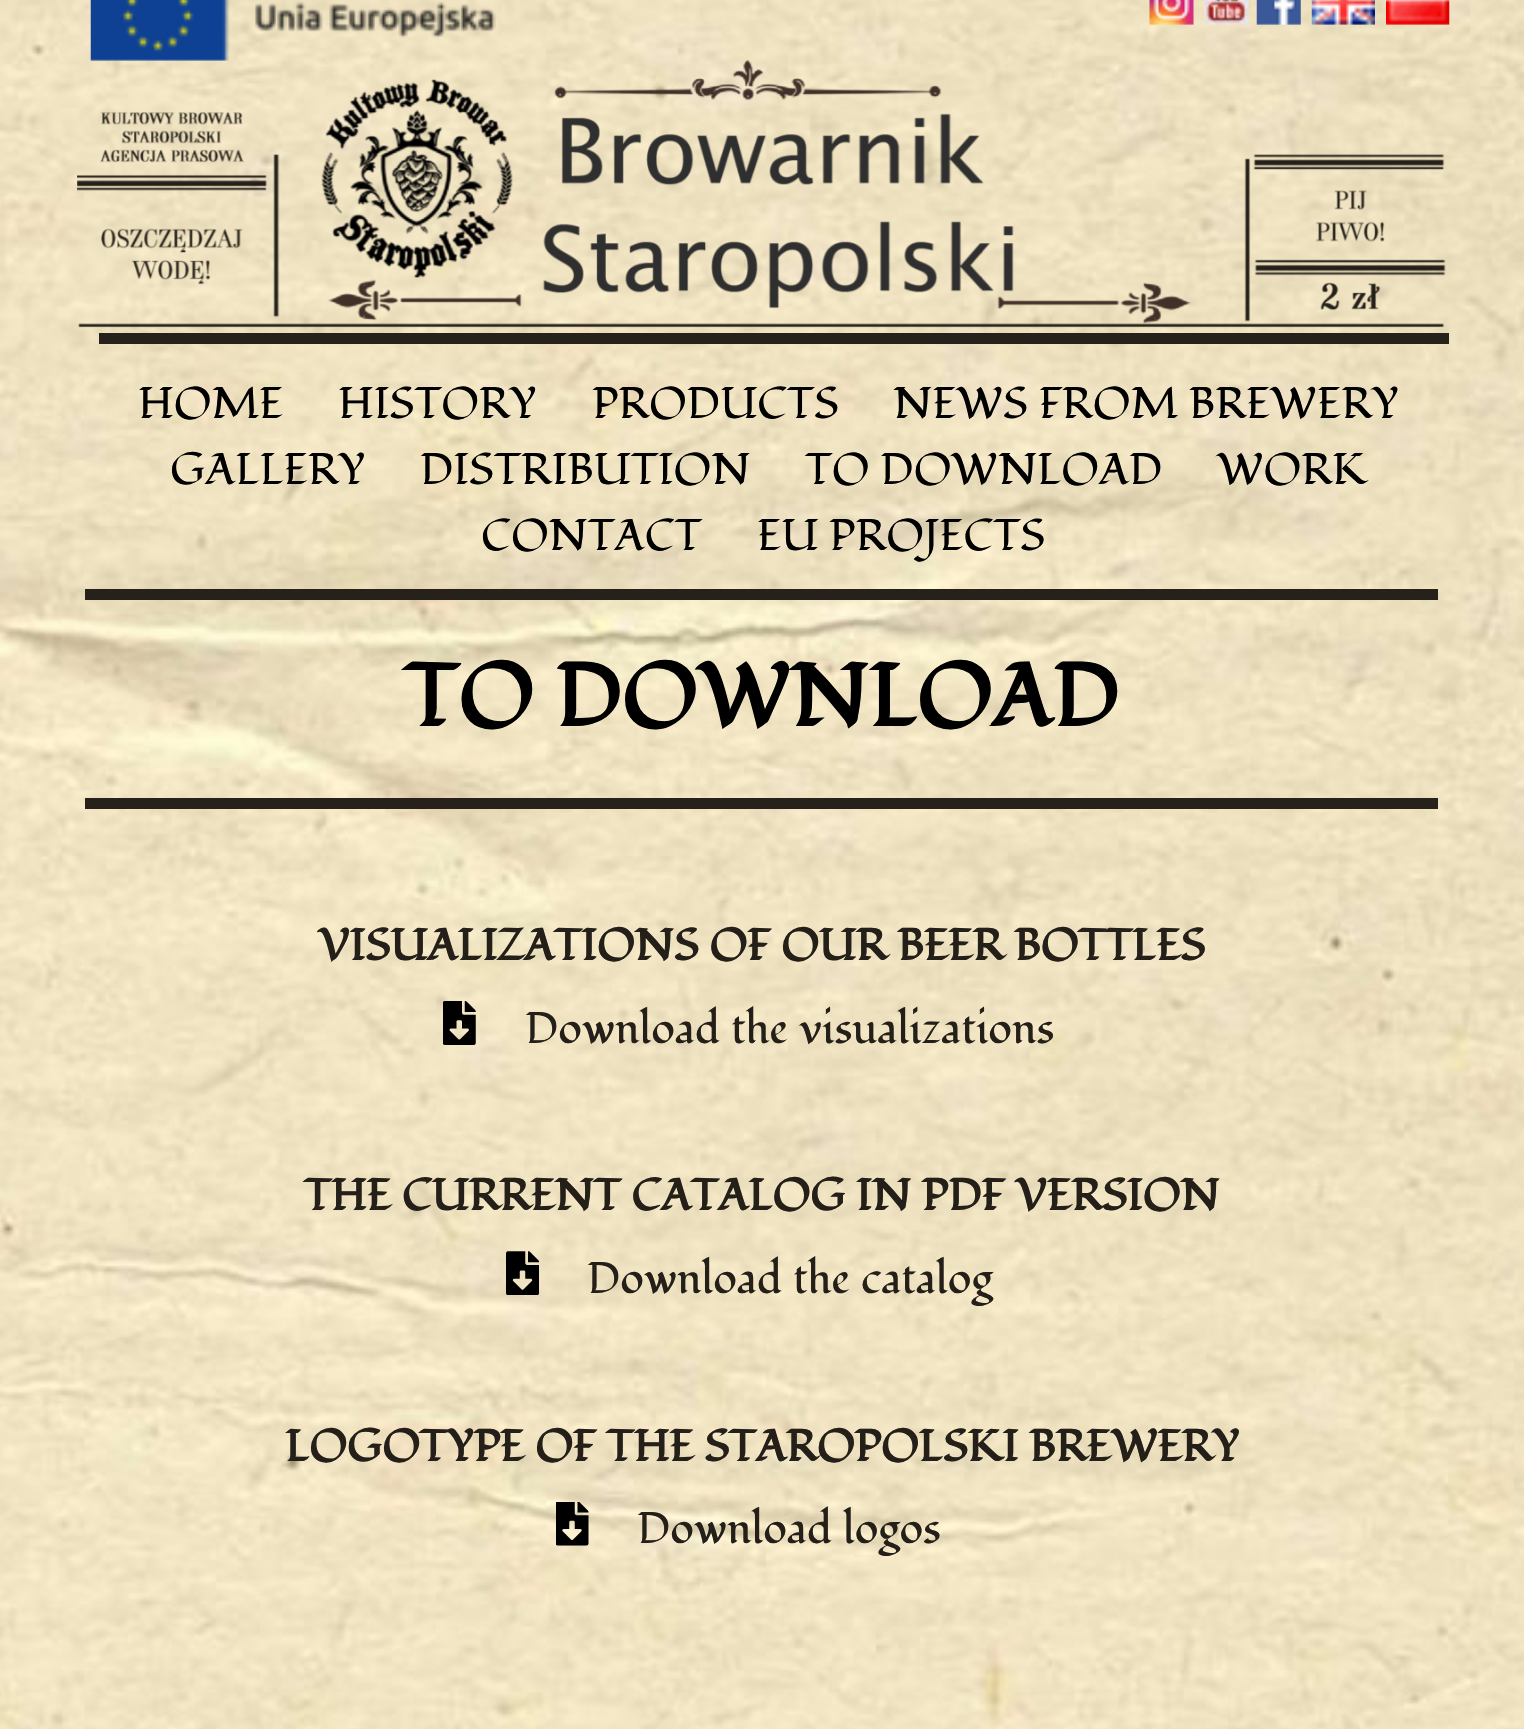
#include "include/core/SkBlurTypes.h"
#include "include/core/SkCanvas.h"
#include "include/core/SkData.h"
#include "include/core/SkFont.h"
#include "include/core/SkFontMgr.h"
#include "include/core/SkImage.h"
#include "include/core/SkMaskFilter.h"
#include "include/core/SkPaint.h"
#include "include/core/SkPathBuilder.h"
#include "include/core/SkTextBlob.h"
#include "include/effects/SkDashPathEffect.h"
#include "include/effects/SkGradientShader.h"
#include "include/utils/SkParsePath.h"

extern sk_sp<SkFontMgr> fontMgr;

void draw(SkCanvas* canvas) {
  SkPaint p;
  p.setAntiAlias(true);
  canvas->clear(SK_ColorWHITE);
  canvas->drawImageRect(SkImages::DeferredFromEncodedData(SkData::MakeFromFileName("images/1.png")), SkRect::MakeLTRB(0, 0, 1524, 1729), SkSamplingOptions());
  canvas->drawImageRect(SkImages::DeferredFromEncodedData(SkData::MakeFromFileName("images/2.png")), SkRect::MakeLTRB(90, 0, 496, 61), SkSamplingOptions());
  canvas->drawImageRect(SkImages::DeferredFromEncodedData(SkData::MakeFromFileName("images/3.png")), SkRect::MakeLTRB(1149, 0, 1194, 25), SkSamplingOptions());
  canvas->drawImageRect(SkImages::DeferredFromEncodedData(SkData::MakeFromFileName("images/4.png")), SkRect::MakeLTRB(1204, 0, 1249, 25), SkSamplingOptions());
  canvas->drawImageRect(SkImages::DeferredFromEncodedData(SkData::MakeFromFileName("images/5.png")), SkRect::MakeLTRB(1256, 0, 1301, 25), SkSamplingOptions());
  canvas->drawImageRect(SkImages::DeferredFromEncodedData(SkData::MakeFromFileName("images/6.png")), SkRect::MakeLTRB(1311, 0, 1375, 25), SkSamplingOptions());
  canvas->drawImageRect(SkImages::DeferredFromEncodedData(SkData::MakeFromFileName("images/7.png")), SkRect::MakeLTRB(1386, 0, 1450, 25), SkSamplingOptions());
  canvas->drawImageRect(SkImages::DeferredFromEncodedData(SkData::MakeFromFileName("images/8.png")), SkRect::MakeLTRB(77, 60, 1446, 328), SkSamplingOptions());
  p.setColor(SkColorSetRGB(38, 34, 27));
  canvas->drawRect(SkRect::MakeLTRB(99, 333, 1449, 344), p);
  canvas->drawRect(SkRect::MakeLTRB(85, 589, 1438, 600), p);
  canvas->drawRect(SkRect::MakeLTRB(85, 798, 1438, 809), p);
  canvas->drawImageRect(SkImages::DeferredFromEncodedData(SkData::MakeFromFileName("images/9.png")), SkRect::MakeLTRB(443, 1001, 476, 1045), SkSamplingOptions());
  canvas->drawImageRect(SkImages::DeferredFromEncodedData(SkData::MakeFromFileName("images/10.png")), SkRect::MakeLTRB(506, 1251, 539, 1295), SkSamplingOptions());
  canvas->drawImageRect(SkImages::DeferredFromEncodedData(SkData::MakeFromFileName("images/11.png")), SkRect::MakeLTRB(556, 1502, 589, 1546), SkSamplingOptions());
  SkFont font1(fontMgr->matchFamilyStyle("Fondamento", SkFontStyle::Normal()), 44);
  font1.setSubpixel(true);
  p.setColor(SK_ColorBLACK);
  canvas->drawString("HOME", 138, 418, font1, p);
  canvas->drawString("HISTORY", 338, 418, font1, p);
  canvas->drawString("PRODUCTS", 592, 418, font1, p);
  canvas->drawString("NEWS FROM BREWERY", 893, 418, font1, p);
  canvas->drawString("GALLERY", 170, 484, font1, p);
  canvas->drawString("DISTRIBUTION", 420, 484, font1, p);
  canvas->drawString("TO DOWNLOAD", 805, 484, font1, p);
  canvas->drawString("WORK", 1217, 484, font1, p);
  canvas->drawString("CONTACT", 481, 550, font1, p);
  canvas->drawString("EU PROJECTS", 757, 550, font1, p);
  SkFont font2(fontMgr->matchFamilyStyle("Fondamento", SkFontStyle::Bold()), 88);
  font2.setSubpixel(true);
  canvas->drawString("TO DOWNLOAD", 404, 726, font2, p);
  SkFont font3(fontMgr->matchFamilyStyle("Fondamento", SkFontStyle::Bold()), 44);
  font3.setSubpixel(true);
  p.setColor(SkColorSetRGB(36, 32, 25));
  canvas->drawString("VISUALIZATIONS OF OUR BEER BOTTLES", 318, 960, font3, p);
  canvas->drawString("Download the visualizations", 525, 1043, font1, p);
  canvas->drawString("THE CURRENT CATALOG IN PDF VERSION", 304, 1210, font3, p);
  canvas->drawString("Download the catalog", 587, 1293, font1, p);
  canvas->drawString("LOGOTYPE OF THE STAROPOLSKI BREWERY", 285, 1461, font3, p);
  canvas->drawString("Download logos", 637, 1543, font1, p);
}
